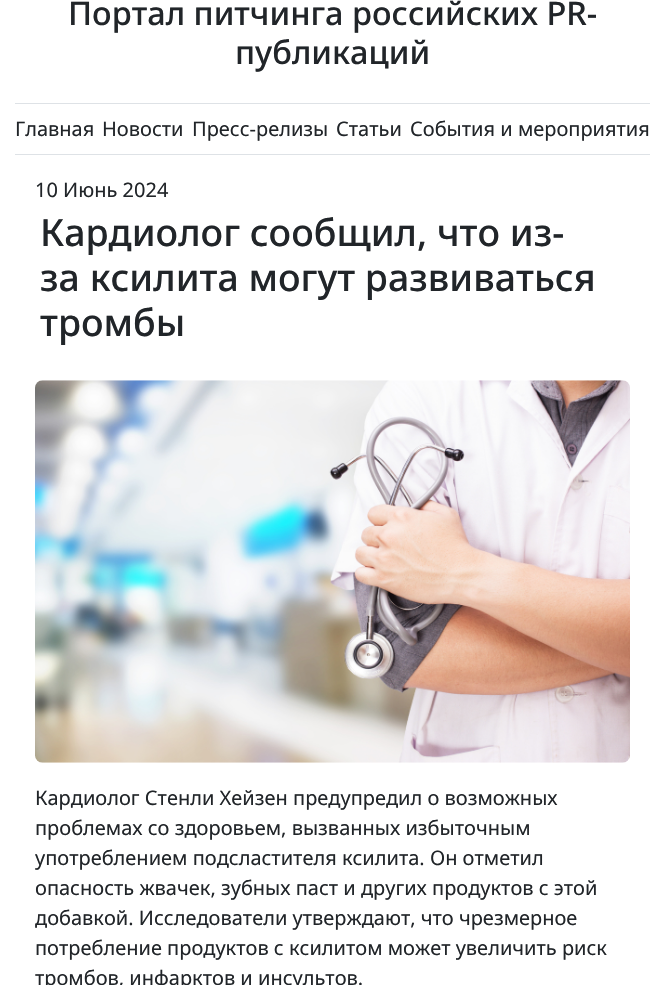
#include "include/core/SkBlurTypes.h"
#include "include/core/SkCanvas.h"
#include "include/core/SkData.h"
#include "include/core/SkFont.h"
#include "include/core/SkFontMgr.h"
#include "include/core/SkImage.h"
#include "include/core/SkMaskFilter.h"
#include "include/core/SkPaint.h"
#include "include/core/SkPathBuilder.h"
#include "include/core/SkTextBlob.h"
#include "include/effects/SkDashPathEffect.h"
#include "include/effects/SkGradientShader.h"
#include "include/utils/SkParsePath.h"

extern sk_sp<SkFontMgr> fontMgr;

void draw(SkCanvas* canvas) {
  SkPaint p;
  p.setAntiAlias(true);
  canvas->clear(SK_ColorWHITE);
  p.setColor(SkColorSetRGB(222, 226, 230));
  canvas->drawRect(SkRect::MakeLTRB(15, 103, 650, 104), p);
  canvas->drawRect(SkRect::MakeLTRB(15, 154, 650, 155), p);
  canvas->drawImageRect(SkImages::DeferredFromEncodedData(SkData::MakeFromFileName("images/1.png")), SkRect::MakeLTRB(35, 380, 630, 763), SkSamplingOptions());
  SkFont font1(fontMgr->matchFamilyStyle("Noto Sans", SkFontStyle(500, SkFontStyle::kNormal_Width, SkFontStyle::kUpright_Slant)), 32.5f);
  font1.setSubpixel(true);
  p.setColor(SkColorSetRGB(33, 37, 41));
  canvas->drawString("Портал питчинга российских PR-", 68, 25, font1, p);
  canvas->drawString("публикаций", 235, 64, font1, p);
  SkFont font2(fontMgr->matchFamilyStyle("Noto Sans", SkFontStyle::Normal()), 20);
  font2.setSubpixel(true);
  canvas->drawString("Главная", 15, 136, font2, p);
  canvas->drawString("Новости", 102, 136, font2, p);
  canvas->drawString("Пресс-релизы", 192, 136, font2, p);
  canvas->drawString("Статьи", 336, 136, font2, p);
  canvas->drawString("События и мероприятия", 410, 136, font2, p);
  canvas->drawString("10 Июнь 2024", 35, 197, font2, p);
  SkFont font3(fontMgr->matchFamilyStyle("Noto Sans", SkFontStyle(500, SkFontStyle::kNormal_Width, SkFontStyle::kUpright_Slant)), 37.5f);
  font3.setSubpixel(true);
  canvas->drawString("Кардиолог сообщил, что из-", 40, 246, font3, p);
  canvas->drawString("за ксилита могут развиваться", 40, 291, font3, p);
  canvas->drawString("тромбы", 40, 336, font3, p);
  canvas->drawString("Кардиолог Стенли Хейзен предупредил о возможных", 35, 805, font2, p);
  canvas->drawString("проблемах со здоровьем, вызванных избыточным", 35, 835, font2, p);
  canvas->drawString("употреблением подсластителя ксилита. Он отметил", 35, 865, font2, p);
  canvas->drawString("опасность жвачек, зубных паст и других продуктов с этой", 35, 895, font2, p);
  canvas->drawString("добавкой. Исследователи утверждают, что чрезмерное", 35, 925, font2, p);
  canvas->drawString("потребление продуктов с ксилитом может увеличить риск", 35, 955, font2, p);
  canvas->drawString("тромбов, инфарктов и инсультов.", 35, 985, font2, p);
}
